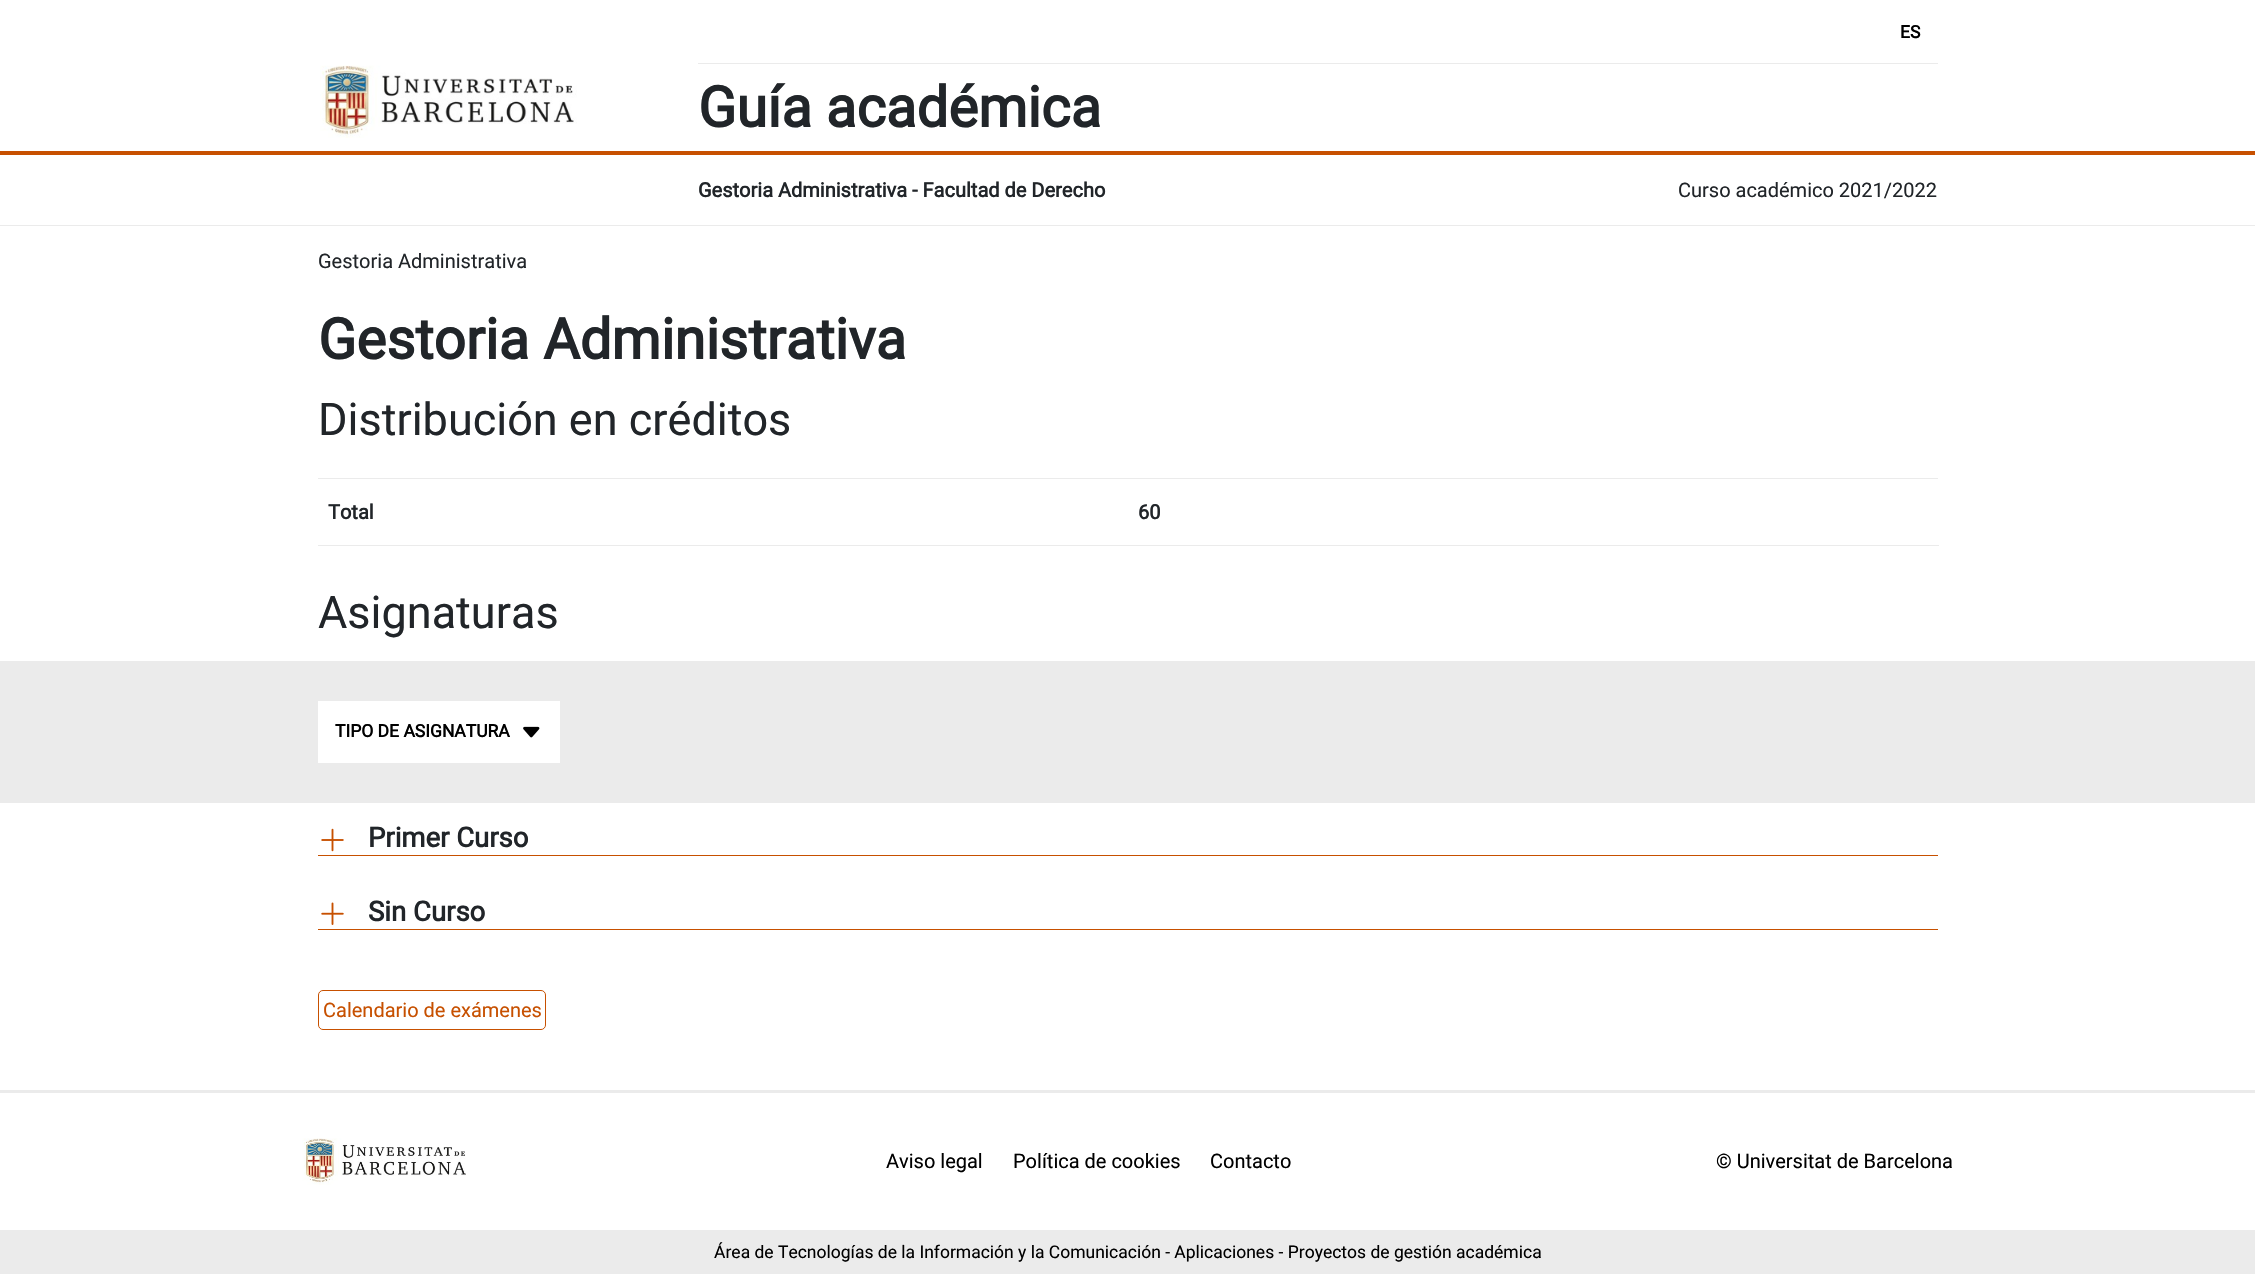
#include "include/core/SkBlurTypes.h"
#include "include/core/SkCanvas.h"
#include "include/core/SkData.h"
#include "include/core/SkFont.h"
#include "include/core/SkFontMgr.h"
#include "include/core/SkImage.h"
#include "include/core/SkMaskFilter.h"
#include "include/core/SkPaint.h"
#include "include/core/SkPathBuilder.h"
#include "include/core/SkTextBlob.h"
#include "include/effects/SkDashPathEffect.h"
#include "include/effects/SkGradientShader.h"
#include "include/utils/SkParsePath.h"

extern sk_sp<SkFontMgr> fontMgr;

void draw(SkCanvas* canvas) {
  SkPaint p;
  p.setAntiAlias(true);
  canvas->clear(SK_ColorWHITE);
  p.setColor(SkColorSetRGB(199, 80, 0));
  canvas->drawRect(SkRect::MakeLTRB(0, 151, 2255, 155), p);
  canvas->drawImageRect(SkImages::DeferredFromEncodedData(SkData::MakeFromFileName("images/1.png")), SkRect::MakeLTRB(320, 65, 577, 138), SkSamplingOptions());
  p.setColor(SkColorSetRGB(235, 235, 235));
  canvas->drawRect(SkRect::MakeLTRB(698, 63, 1938, 64), p);
  canvas->drawRect(SkRect::MakeLTRB(0, 225, 2255, 226), p);
  canvas->drawRect(SkRect::MakeLTRB(318, 478, 1938, 479), p);
  canvas->drawRect(SkRect::MakeLTRB(318, 545, 1939, 546), p);
  canvas->drawRect(SkRect::MakeLTRB(0, 661, 2255, 803), p);
  p.setColor(SK_ColorWHITE);
  canvas->drawRect(SkRect::MakeLTRB(318, 701, 560, 763), p);
  canvas->drawImageRect(SkImages::DeferredFromEncodedData(SkData::MakeFromFileName("images/2.png")), SkRect::MakeLTRB(523, 726, 540, 738), SkSamplingOptions());
  p.setColor(SkColorSetRGB(199, 80, 0));
  canvas->drawRect(SkRect::MakeLTRB(318, 855, 1938, 856), p);
  canvas->drawImageRect(SkImages::DeferredFromEncodedData(SkData::MakeFromFileName("images/3.png")), SkRect::MakeLTRB(321, 828, 344, 852), SkSamplingOptions());
  canvas->drawRect(SkRect::MakeLTRB(318, 929, 1938, 930), p);
  canvas->drawImageRect(SkImages::DeferredFromEncodedData(SkData::MakeFromFileName("images/4.png")), SkRect::MakeLTRB(321, 902, 344, 925), SkSamplingOptions());
  p.setStyle(SkPaint::kStroke_Style);
  p.setStrokeWidth(1);
  canvas->drawRoundRect(SkRect::MakeLTRB(318.5f, 990.5f, 545.5f, 1029.5f), 4.5f, 4.5f, p);
  p.setStyle(SkPaint::kFill_Style);
  p.setColor(SkColorSetRGB(235, 235, 235));
  canvas->drawRect(SkRect::MakeLTRB(0, 1090, 2255, 1093), p);
  canvas->drawImageRect(SkImages::DeferredFromEncodedData(SkData::MakeFromFileName("images/5.png")), SkRect::MakeLTRB(302, 1138, 466, 1185), SkSamplingOptions());
  canvas->drawRect(SkRect::MakeLTRB(0, 1230, 2255, 1274), p);
  SkFont font1(fontMgr->matchFamilyStyle("Roboto", SkFontStyle::Bold()), 17.5f);
  font1.setSubpixel(true);
  p.setColor(SK_ColorBLACK);
  canvas->drawString("ES", 1900, 38, font1, p);
  SkFont font2(fontMgr->matchFamilyStyle("Roboto", SkFontStyle::Bold()), 56.25f);
  font2.setSubpixel(true);
  p.setColor(SkColorSetRGB(33, 37, 41));
  canvas->drawString("Guía académica", 698, 127, font2, p);
  SkFont font3(fontMgr->matchFamilyStyle("Roboto", SkFontStyle::Bold()), 20);
  font3.setSubpixel(true);
  canvas->drawString("Gestoria Administrativa - Facultad de Derecho", 698, 197, font3, p);
  SkFont font4(fontMgr->matchFamilyStyle("Roboto", SkFontStyle::Normal()), 20);
  font4.setSubpixel(true);
  canvas->drawString("Curso académico 2021/2022", 1678, 197, font4, p);
  canvas->drawString("Gestoria Administrativa", 318, 268, font4, p);
  canvas->drawString("Gestoria Administrativa", 318, 359, font2, p);
  SkFont font5(fontMgr->matchFamilyStyle("Roboto", SkFontStyle::Normal()), 45);
  font5.setSubpixel(true);
  canvas->drawString("Distribución en créditos", 318, 435, font5, p);
  canvas->drawString("Total", 328, 519, font3, p);
  canvas->drawString("60", 1138, 519, font3, p);
  canvas->drawString("Asignaturas", 318, 628, font5, p);
  p.setColor(SK_ColorBLACK);
  canvas->drawString("TIPO DE ASIGNATURA", 335, 737, font1, p);
  SkFont font6(fontMgr->matchFamilyStyle("Roboto", SkFontStyle::Bold()), 27.5f);
  font6.setSubpixel(true);
  p.setColor(SkColorSetRGB(33, 37, 41));
  canvas->drawString("Primer Curso", 368, 847, font6, p);
  canvas->drawString("Sin Curso", 368, 921, font6, p);
  p.setColor(SkColorSetRGB(199, 80, 0));
  canvas->drawString("Calendario de exámenes", 323, 1017, font4, p);
  p.setColor(SK_ColorBLACK);
  canvas->drawString("Aviso legal", 886, 1168, font4, p);
  canvas->drawString("Política de cookies", 1013, 1168, font4, p);
  canvas->drawString("Contacto", 1210, 1168, font4, p);
  canvas->drawString("© Universitat de Barcelona", 1716, 1168, font4, p);
  SkFont font7(fontMgr->matchFamilyStyle("Roboto", SkFontStyle::Normal()), 17.5f);
  font7.setSubpixel(true);
  canvas->drawString("Área de Tecnologías de la Información y la Comunicación - Aplicaciones - Proyectos de gestión académica", 714, 1258, font7, p);
}
